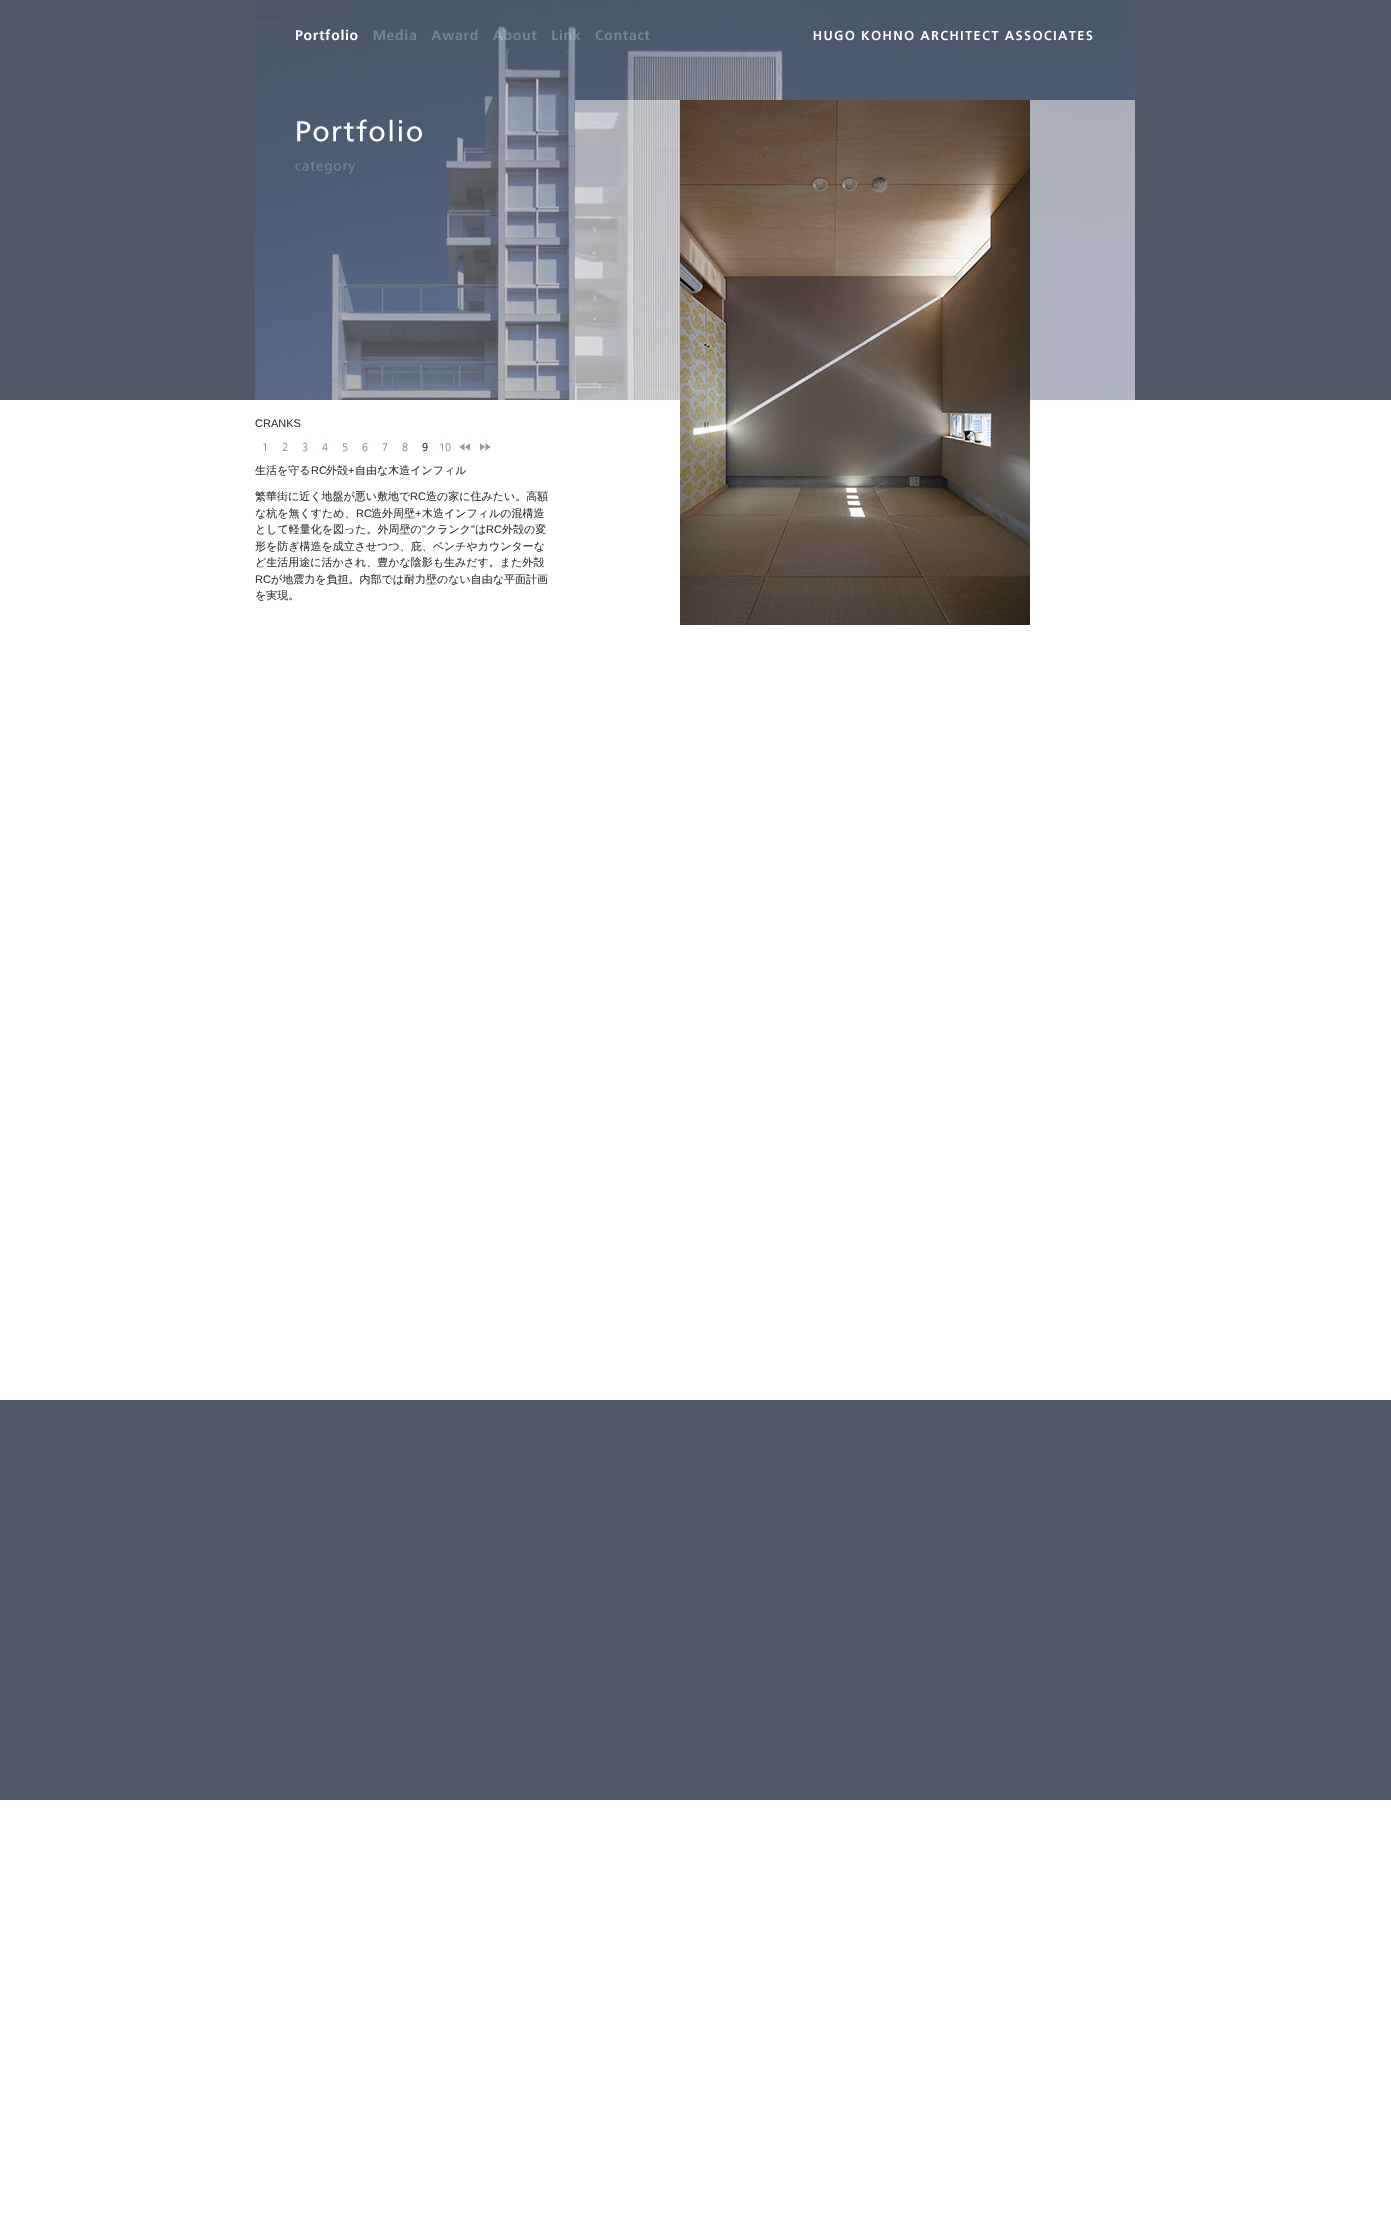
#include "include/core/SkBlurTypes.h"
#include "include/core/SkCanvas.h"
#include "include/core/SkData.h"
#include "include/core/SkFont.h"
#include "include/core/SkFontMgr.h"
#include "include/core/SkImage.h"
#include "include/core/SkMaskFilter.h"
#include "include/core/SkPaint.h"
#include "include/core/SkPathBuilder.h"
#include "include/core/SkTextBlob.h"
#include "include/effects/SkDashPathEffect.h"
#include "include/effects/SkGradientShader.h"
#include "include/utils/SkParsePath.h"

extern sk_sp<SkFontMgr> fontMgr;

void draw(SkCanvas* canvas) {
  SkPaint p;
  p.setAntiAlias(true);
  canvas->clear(SK_ColorWHITE);
  canvas->drawImageRect(SkImages::DeferredFromEncodedData(SkData::MakeFromFileName("images/1.png")), SkRect::MakeLTRB(0, 0, 1391, 1800), SkSamplingOptions());
  canvas->drawImageRect(SkImages::DeferredFromEncodedData(SkData::MakeFromFileName("images/2.png")), SkRect::MakeLTRB(255, 0, 1135, 20), SkSamplingOptions());
  canvas->drawImageRect(SkImages::DeferredFromEncodedData(SkData::MakeFromFileName("images/3.png")), SkRect::MakeLTRB(255, 24, 285, 50), SkSamplingOptions());
  canvas->drawImageRect(SkImages::DeferredFromEncodedData(SkData::MakeFromFileName("images/4.png")), SkRect::MakeLTRB(285, 20, 365, 50), SkSamplingOptions());
  canvas->drawImageRect(SkImages::DeferredFromEncodedData(SkData::MakeFromFileName("images/5.png")), SkRect::MakeLTRB(365, 20, 425, 50), SkSamplingOptions());
  canvas->drawImageRect(SkImages::DeferredFromEncodedData(SkData::MakeFromFileName("images/6.png")), SkRect::MakeLTRB(425, 20, 485, 50), SkSamplingOptions());
  canvas->drawImageRect(SkImages::DeferredFromEncodedData(SkData::MakeFromFileName("images/7.png")), SkRect::MakeLTRB(485, 20, 545, 50), SkSamplingOptions());
  canvas->drawImageRect(SkImages::DeferredFromEncodedData(SkData::MakeFromFileName("images/8.png")), SkRect::MakeLTRB(545, 20, 585, 50), SkSamplingOptions());
  canvas->drawImageRect(SkImages::DeferredFromEncodedData(SkData::MakeFromFileName("images/9.png")), SkRect::MakeLTRB(585, 20, 655, 50), SkSamplingOptions());
  canvas->drawImageRect(SkImages::DeferredFromEncodedData(SkData::MakeFromFileName("images/10.png")), SkRect::MakeLTRB(655, 20, 1135, 50), SkSamplingOptions());
  canvas->drawImageRect(SkImages::DeferredFromEncodedData(SkData::MakeFromFileName("images/11.png")), SkRect::MakeLTRB(255, 50, 1135, 100), SkSamplingOptions());
  canvas->drawImageRect(SkImages::DeferredFromEncodedData(SkData::MakeFromFileName("images/12.png")), SkRect::MakeLTRB(255, 100, 575, 150), SkSamplingOptions());
  canvas->drawImageRect(SkImages::DeferredFromEncodedData(SkData::MakeFromFileName("images/13.png")), SkRect::MakeLTRB(255, 150, 285, 180), SkSamplingOptions());
  canvas->drawImageRect(SkImages::DeferredFromEncodedData(SkData::MakeFromFileName("images/14.png")), SkRect::MakeLTRB(285, 150, 360, 180), SkSamplingOptions());
  canvas->drawImageRect(SkImages::DeferredFromEncodedData(SkData::MakeFromFileName("images/15.png")), SkRect::MakeLTRB(360, 150, 455, 180), SkSamplingOptions());
  canvas->drawImageRect(SkImages::DeferredFromEncodedData(SkData::MakeFromFileName("images/16.png")), SkRect::MakeLTRB(455, 150, 575, 180), SkSamplingOptions());
  canvas->drawImageRect(SkImages::DeferredFromEncodedData(SkData::MakeFromFileName("images/17.png")), SkRect::MakeLTRB(255, 180, 575, 400), SkSamplingOptions());
  canvas->drawImageRect(SkImages::DeferredFromEncodedData(SkData::MakeFromFileName("images/18.png")), SkRect::MakeLTRB(263, 439, 270, 451), SkSamplingOptions());
  canvas->drawImageRect(SkImages::DeferredFromEncodedData(SkData::MakeFromFileName("images/19.png")), SkRect::MakeLTRB(281, 439, 288, 452), SkSamplingOptions());
  canvas->drawImageRect(SkImages::DeferredFromEncodedData(SkData::MakeFromFileName("images/20.png")), SkRect::MakeLTRB(297, 437, 311, 452), SkSamplingOptions());
  canvas->drawImageRect(SkImages::DeferredFromEncodedData(SkData::MakeFromFileName("images/21.png")), SkRect::MakeLTRB(316, 437, 330, 452), SkSamplingOptions());
  canvas->drawImageRect(SkImages::DeferredFromEncodedData(SkData::MakeFromFileName("images/22.png")), SkRect::MakeLTRB(343, 442, 350, 452), SkSamplingOptions());
  canvas->drawImageRect(SkImages::DeferredFromEncodedData(SkData::MakeFromFileName("images/23.png")), SkRect::MakeLTRB(361, 439, 370, 452), SkSamplingOptions());
  canvas->drawImageRect(SkImages::DeferredFromEncodedData(SkData::MakeFromFileName("images/24.png")), SkRect::MakeLTRB(380, 441, 389, 451), SkSamplingOptions());
  canvas->drawImageRect(SkImages::DeferredFromEncodedData(SkData::MakeFromFileName("images/25.png")), SkRect::MakeLTRB(402, 443, 408, 452), SkSamplingOptions());
  canvas->drawImageRect(SkImages::DeferredFromEncodedData(SkData::MakeFromFileName("images/26.png")), SkRect::MakeLTRB(421, 442, 430, 452), SkSamplingOptions());
  canvas->drawImageRect(SkImages::DeferredFromEncodedData(SkData::MakeFromFileName("images/27.png")), SkRect::MakeLTRB(436, 437, 451, 452), SkSamplingOptions());
  canvas->drawImageRect(SkImages::DeferredFromEncodedData(SkData::MakeFromFileName("images/28.png")), SkRect::MakeLTRB(459, 438, 471, 452), SkSamplingOptions());
  canvas->drawImageRect(SkImages::DeferredFromEncodedData(SkData::MakeFromFileName("images/29.png")), SkRect::MakeLTRB(479, 439, 491, 453), SkSamplingOptions());
  canvas->drawImageRect(SkImages::DeferredFromEncodedData(SkData::MakeFromFileName("images/30.png")), SkRect::MakeLTRB(575, 100, 1135, 404), SkSamplingOptions());
  canvas->drawImageRect(SkImages::DeferredFromEncodedData(SkData::MakeFromFileName("images/31.png")), SkRect::MakeLTRB(680, 100, 1030, 625), SkSamplingOptions());
  SkFont font1(fontMgr->matchFamilyStyle("Liberation Sans", SkFontStyle::Normal()), 11);
  font1.setSubpixel(true);
  p.setColor(SkColorSetRGB(51, 51, 51));
  canvas->drawString("CRANKS", 255, 427, font1, p);
  SkFont font2(fontMgr->matchFamilyStyle("WenQuanYi Zen Hei", SkFontStyle(500, SkFontStyle::kNormal_Width, SkFontStyle::kUpright_Slant)), 11);
  font2.setSubpixel(true);
  canvas->drawString("生活を守る", 255, 474, font2, p);
  canvas->drawString("RC", 311, 474, font1, p);
  canvas->drawString("外殻", 326, 474, font2, p);
  canvas->drawString("+", 348, 474, font1, p);
  canvas->drawString("自由な木造インフィル", 355, 474, font2, p);
  canvas->drawString("繁華街に近く地盤が悪い敷地で", 255, 500, font2, p);
  canvas->drawString("RC", 410, 500, font1, p);
  canvas->drawString("造の家に住みたい。高額", 426, 500, font2, p);
  canvas->drawString("な杭を無くすため、", 255, 517, font2, p);
  canvas->drawString("RC", 356, 517, font1, p);
  canvas->drawString("造外周壁", 371, 517, font2, p);
  canvas->drawString("+", 415, 517, font1, p);
  canvas->drawString("木造インフィルの混構造", 422, 517, font2, p);
  canvas->drawString("として軽量化を図った。外周壁の", 255, 533, font2, p);
  canvas->drawString("\"", 422, 533, font1, p);
  canvas->drawString("クランク", 426, 533, font2, p);
  canvas->drawString("\"", 471, 533, font1, p);
  canvas->drawString("は", 475, 533, font2, p);
  canvas->drawString("RC", 486, 533, font1, p);
  canvas->drawString("外殻の変", 502, 533, font2, p);
  canvas->drawString("形を防ぎ構造を成立させつつ、庇、ベンチやカウンターな", 255, 550, font2, p);
  canvas->drawString("ど生活用途に活かされ、豊かな陰影も生みだす。また外殻", 255, 566, font2, p);
  canvas->drawString("RC", 255, 583, font1, p);
  canvas->drawString("が地震力を負担。内部では耐力壁のない自由な平面計画", 271, 583, font2, p);
  canvas->drawString("を実現。", 255, 599, font2, p);
}
